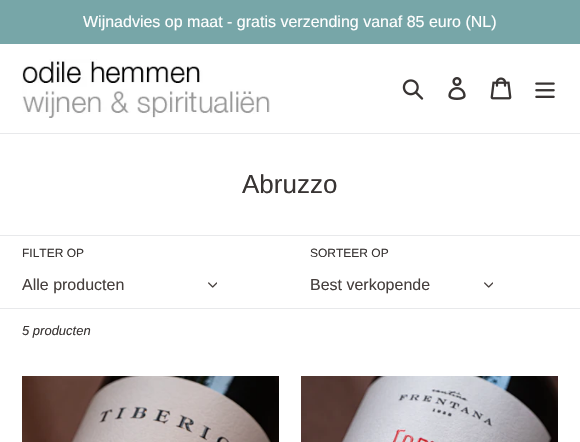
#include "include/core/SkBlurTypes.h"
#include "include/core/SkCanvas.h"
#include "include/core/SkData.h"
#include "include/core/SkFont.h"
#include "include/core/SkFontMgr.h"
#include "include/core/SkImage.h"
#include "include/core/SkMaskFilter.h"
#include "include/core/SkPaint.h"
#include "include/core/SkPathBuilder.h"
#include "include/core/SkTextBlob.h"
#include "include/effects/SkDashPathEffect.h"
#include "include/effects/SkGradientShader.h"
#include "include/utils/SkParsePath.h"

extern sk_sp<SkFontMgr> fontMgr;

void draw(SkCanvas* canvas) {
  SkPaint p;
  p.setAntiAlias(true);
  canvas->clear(SK_ColorWHITE);
  p.setColor(SkColorSetRGB(119, 166, 168));
  canvas->drawRect(SkRect::MakeLTRB(0, 0, 580, 44), p);
  p.setColor(SkColorSetRGB(232, 233, 235));
  canvas->drawRect(SkRect::MakeLTRB(0, 133, 580, 134), p);
  canvas->drawImageRect(SkImages::DeferredFromEncodedData(SkData::MakeFromFileName("images/1.png")), SkRect::MakeLTRB(22, 59, 270, 118), SkSamplingOptions());
  canvas->drawImageRect(SkImages::DeferredFromEncodedData(SkData::MakeFromFileName("images/2.png")), SkRect::MakeLTRB(402, 79, 424, 100), SkSamplingOptions());
  canvas->drawImageRect(SkImages::DeferredFromEncodedData(SkData::MakeFromFileName("images/3.png")), SkRect::MakeLTRB(448, 77, 466, 100), SkSamplingOptions());
  canvas->drawImageRect(SkImages::DeferredFromEncodedData(SkData::MakeFromFileName("images/4.png")), SkRect::MakeLTRB(490, 77, 512, 100), SkSamplingOptions());
  canvas->drawImageRect(SkImages::DeferredFromEncodedData(SkData::MakeFromFileName("images/5.png")), SkRect::MakeLTRB(535, 82, 555, 98), SkSamplingOptions());
  canvas->drawRect(SkRect::MakeLTRB(0, 235, 580, 236), p);
  canvas->drawImageRect(SkImages::DeferredFromEncodedData(SkData::MakeFromFileName("images/6.png")), SkRect::MakeLTRB(208, 282, 217, 288), SkSamplingOptions());
  canvas->drawImageRect(SkImages::DeferredFromEncodedData(SkData::MakeFromFileName("images/6.png")), SkRect::MakeLTRB(484, 282, 493, 288), SkSamplingOptions());
  canvas->drawRect(SkRect::MakeLTRB(0, 308, 580, 309), p);
  canvas->drawImageRect(SkImages::DeferredFromEncodedData(SkData::MakeFromFileName("images/7.png")), SkRect::MakeLTRB(22, 376, 279, 442), SkSamplingOptions());
  canvas->drawImageRect(SkImages::DeferredFromEncodedData(SkData::MakeFromFileName("images/8.png")), SkRect::MakeLTRB(301, 376, 558, 442), SkSamplingOptions());
  SkFont font1(fontMgr->matchFamilyStyle("Liberation Sans", SkFontStyle::Normal()), 16);
  font1.setSubpixel(true);
  p.setColor(SK_ColorWHITE);
  canvas->drawString("Wijnadvies op maat - gratis verzending vanaf 85 euro (NL)", 83, 27, font1, p);
  SkFont font2(fontMgr->matchFamilyStyle("Liberation Sans", SkFontStyle::Normal()), 26);
  font2.setSubpixel(true);
  p.setColor(SkColorSetRGB(56, 52, 51));
  canvas->drawString("Abruzzo", 242, 193, font2, p);
  SkFont font3(fontMgr->matchFamilyStyle("Liberation Sans", SkFontStyle::Normal()), 12);
  font3.setSubpixel(true);
  canvas->drawString("FILTER OP", 22, 257, font3, p);
  p.setColor(SkColorSetRGB(70, 63, 61));
  canvas->drawString("Alle producten", 22, 290, font1, p);
  p.setColor(SkColorSetRGB(56, 52, 51));
  canvas->drawString("SORTEER OP", 310, 257, font3, p);
  p.setColor(SkColorSetRGB(70, 63, 61));
  canvas->drawString("Best verkopende", 310, 290, font1, p);
  SkFont font4(fontMgr->matchFamilyStyle("Liberation Sans", SkFontStyle::Italic()), 13);
  font4.setSubpixel(true);
  p.setColor(SkColorSetRGB(56, 52, 51));
  canvas->drawString("5 producten", 22, 335, font4, p);
}
